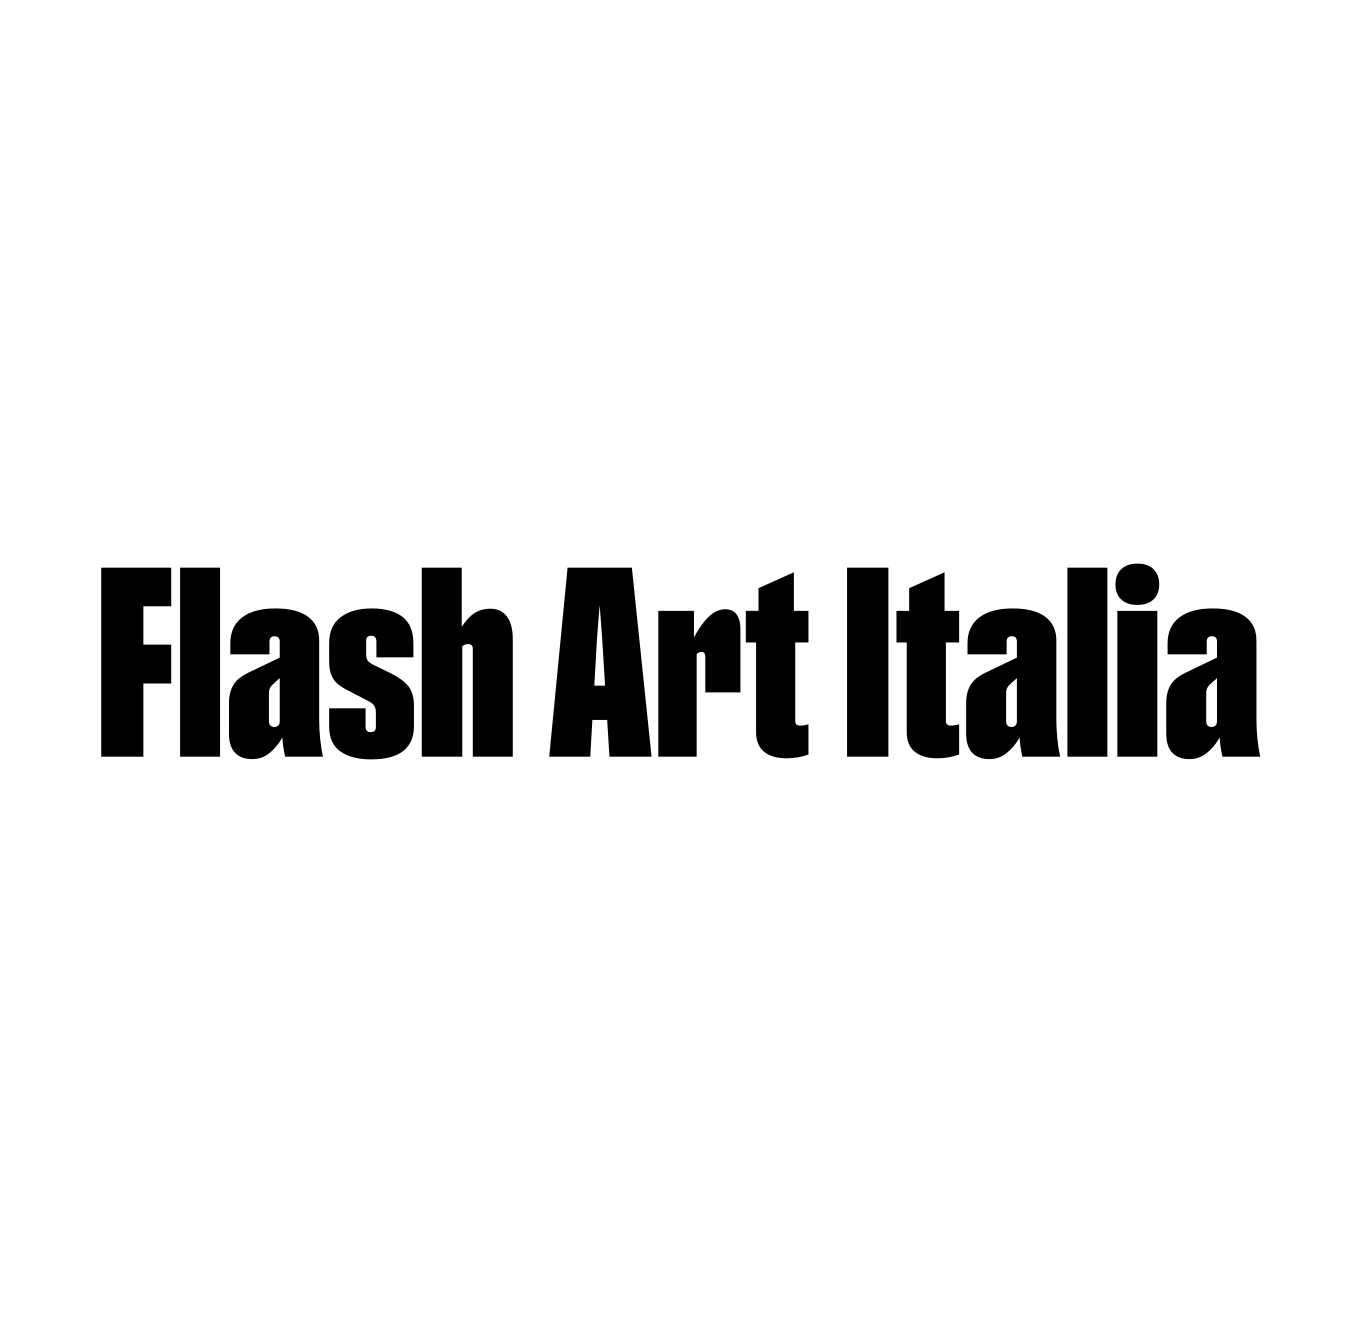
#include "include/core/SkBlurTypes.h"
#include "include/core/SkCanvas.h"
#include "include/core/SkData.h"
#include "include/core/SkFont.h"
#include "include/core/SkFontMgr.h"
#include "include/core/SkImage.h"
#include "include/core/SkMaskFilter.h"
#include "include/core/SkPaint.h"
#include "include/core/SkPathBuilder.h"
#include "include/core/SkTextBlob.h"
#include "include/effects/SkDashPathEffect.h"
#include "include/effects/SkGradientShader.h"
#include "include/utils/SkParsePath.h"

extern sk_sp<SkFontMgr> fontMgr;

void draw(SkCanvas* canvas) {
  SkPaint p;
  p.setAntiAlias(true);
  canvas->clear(SK_ColorWHITE);
  canvas->drawImageRect(SkImages::DeferredFromEncodedData(SkData::MakeFromFileName("images/1.png")), SkRect::MakeLTRB(101, 563, 1261, 760), SkSamplingOptions());
}
